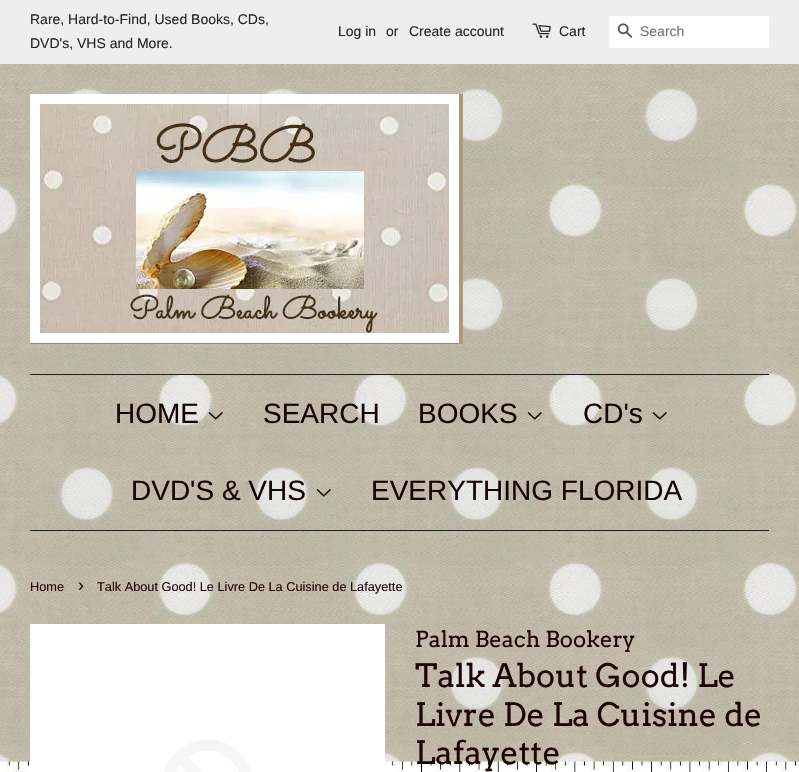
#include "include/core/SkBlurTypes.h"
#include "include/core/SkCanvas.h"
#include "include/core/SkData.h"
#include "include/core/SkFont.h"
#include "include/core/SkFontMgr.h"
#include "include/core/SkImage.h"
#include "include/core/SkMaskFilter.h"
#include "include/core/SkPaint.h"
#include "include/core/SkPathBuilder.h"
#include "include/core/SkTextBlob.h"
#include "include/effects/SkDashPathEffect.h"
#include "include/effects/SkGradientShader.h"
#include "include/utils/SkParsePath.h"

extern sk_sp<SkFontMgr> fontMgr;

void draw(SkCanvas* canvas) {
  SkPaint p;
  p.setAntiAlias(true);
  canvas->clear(SK_ColorWHITE);
  canvas->drawImageRect(SkImages::DeferredFromEncodedData(SkData::MakeFromFileName("images/1.png")), SkRect::MakeLTRB(0, 771, 799, 772), SkSamplingOptions());
  canvas->drawImageRect(SkImages::DeferredFromEncodedData(SkData::MakeFromFileName("images/2.png")), SkRect::MakeLTRB(0, 64, 799, 772), SkSamplingOptions());
  p.setColor(SkColorSetRGB(238, 238, 238));
  canvas->drawRect(SkRect::MakeLTRB(0, 0, 799, 64), p);
  canvas->drawImageRect(SkImages::DeferredFromEncodedData(SkData::MakeFromFileName("images/3.png")), SkRect::MakeLTRB(532, 23, 551, 38), SkSamplingOptions());
  p.setColor(SK_ColorWHITE);
  canvas->drawRoundRect(SkRect::MakeLTRB(609, 16, 769, 48), 2, 2, p);
  canvas->drawImageRect(SkImages::DeferredFromEncodedData(SkData::MakeFromFileName("images/4.png")), SkRect::MakeLTRB(617, 23, 633, 38), SkSamplingOptions());
  canvas->drawImageRect(SkImages::DeferredFromEncodedData(SkData::MakeFromFileName("images/5.png")), SkRect::MakeLTRB(30, 94, 463, 344), SkSamplingOptions());
  p.setColor(SkColorSetRGB(28, 31, 31));
  canvas->drawRect(SkRect::MakeLTRB(30, 374, 769, 375), p);
  canvas->drawRect(SkRect::MakeLTRB(30, 530, 769, 531), p);
  canvas->drawImageRect(SkImages::DeferredFromEncodedData(SkData::MakeFromFileName("images/6.png")), SkRect::MakeLTRB(208, 412, 223, 420), SkSamplingOptions());
  canvas->drawImageRect(SkImages::DeferredFromEncodedData(SkData::MakeFromFileName("images/7.png")), SkRect::MakeLTRB(527, 412, 542, 420), SkSamplingOptions());
  canvas->drawImageRect(SkImages::DeferredFromEncodedData(SkData::MakeFromFileName("images/8.png")), SkRect::MakeLTRB(652, 412, 667, 420), SkSamplingOptions());
  canvas->drawImageRect(SkImages::DeferredFromEncodedData(SkData::MakeFromFileName("images/9.png")), SkRect::MakeLTRB(316, 489, 331, 497), SkSamplingOptions());
  canvas->drawImageRect(SkImages::DeferredFromEncodedData(SkData::MakeFromFileName("images/10.png")), SkRect::MakeLTRB(30, 624, 385, 772), SkSamplingOptions());
  SkFont font1(fontMgr->matchFamilyStyle("Liberation Sans", SkFontStyle::Normal()), 14);
  font1.setSubpixel(true);
  p.setColor(SkColorSetRGB(37, 36, 36));
  canvas->drawString("Rare, Hard-to-Find, Used Books, CDs,", 30, 24, font1, p);
  canvas->drawString("DVD's, VHS and More.", 30, 48, font1, p);
  canvas->drawString("Log in", 338, 36, font1, p);
  canvas->drawString("or", 386, 36, font1, p);
  canvas->drawString("Create account", 409, 36, font1, p);
  canvas->drawString("Cart", 559, 36, font1, p);
  p.setColor(SkColorSetRGB(117, 117, 117));
  canvas->drawString("Search", 640, 36, font1, p);
  SkFont font2(fontMgr->matchFamilyStyle("Liberation Sans", SkFontStyle::Normal()), 28);
  font2.setSubpixel(true);
  p.setColor(SkColorSetRGB(22, 5, 5));
  canvas->drawString("HOME", 115, 423, font2, p);
  canvas->drawString("SEARCH", 263, 423, font2, p);
  canvas->drawString("BOOKS", 418, 423, font2, p);
  canvas->drawString("CD's", 583, 423, font2, p);
  canvas->drawString("DVD'S & VHS", 131, 500, font2, p);
  canvas->drawString("EVERYTHING FLORIDA", 371, 500, font2, p);
  SkFont font3(fontMgr->matchFamilyStyle("Liberation Sans", SkFontStyle::Normal()), 12.75f);
  font3.setSubpixel(true);
  p.setColor(SkColorSetRGB(29, 5, 5));
  canvas->drawString("Home", 30, 591, font3, p);
  SkFont font4(fontMgr->matchFamilyStyle("Liberation Sans", SkFontStyle::Normal()), 18);
  font4.setSubpixel(true);
  canvas->drawString("›", 78, 591, font4, p);
  canvas->drawString("Talk About Good! Le Livre De La Cuisine de Lafayette", 97, 591, font3, p);
  SkFont font5(fontMgr->matchFamilyStyle("Arvo", SkFontStyle::Normal()), 22);
  font5.setSubpixel(true);
  canvas->drawString("Palm Beach Bookery", 415, 647, font5, p);
  SkFont font6(fontMgr->matchFamilyStyle("Arvo", SkFontStyle::Normal()), 32);
  font6.setSubpixel(true);
  canvas->drawString("Talk About Good! Le", 415, 687, font6, p);
  canvas->drawString("Livre De La Cuisine de", 415, 726, font6, p);
  canvas->drawString("Lafayette", 415, 764, font6, p);
}
